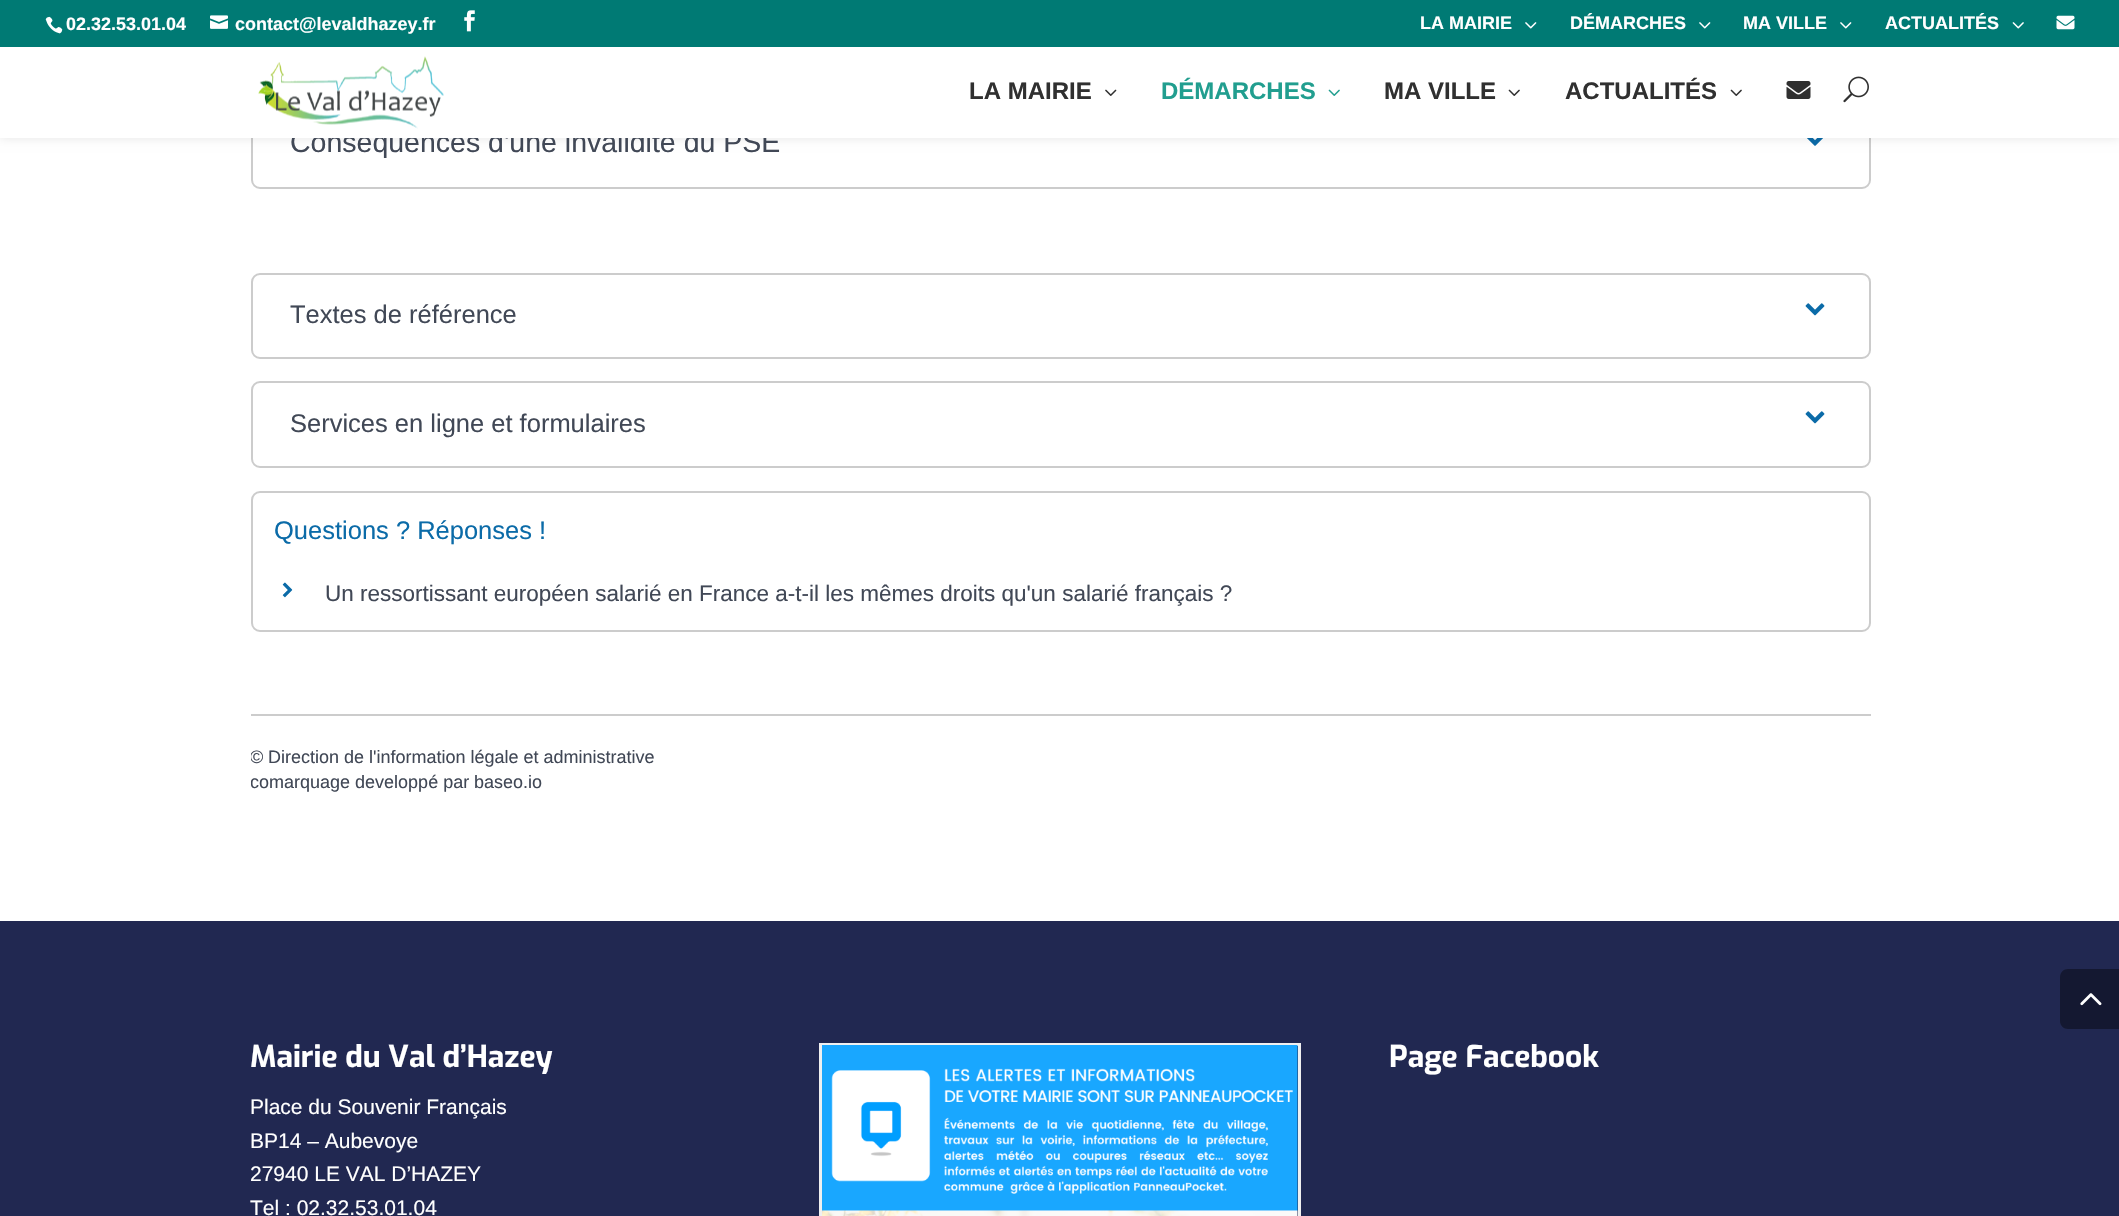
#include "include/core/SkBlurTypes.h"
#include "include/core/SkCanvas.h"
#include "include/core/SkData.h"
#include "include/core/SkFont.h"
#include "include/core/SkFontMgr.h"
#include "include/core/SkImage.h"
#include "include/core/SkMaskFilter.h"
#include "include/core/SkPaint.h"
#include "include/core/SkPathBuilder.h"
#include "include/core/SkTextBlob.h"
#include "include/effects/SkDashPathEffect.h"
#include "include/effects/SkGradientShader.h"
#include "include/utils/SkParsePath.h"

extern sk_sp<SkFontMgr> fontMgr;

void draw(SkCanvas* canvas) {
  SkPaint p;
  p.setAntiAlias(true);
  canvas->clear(SK_ColorWHITE);
  p.setStyle(SkPaint::kStroke_Style);
  p.setStrokeWidth(2);
  p.setColor(SkColorSetRGB(204, 204, 204));
  canvas->drawRoundRect(SkRect::MakeLTRB(252, -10, 1870, 188), 8, 8, p);
  canvas->drawImageRect(SkImages::DeferredFromEncodedData(SkData::MakeFromFileName("images/13.png")), SkRect::MakeLTRB(1807, 138, 1823, 146), SkSamplingOptions());
  p.setStyle(SkPaint::kFill_Style);
  p.setColor(SkColorSetARGB(26, 0, 0, 0));
  p.setMaskFilter(SkMaskFilter::MakeBlur(kNormal_SkBlurStyle, 5));
  canvas->drawRect(SkRect::MakeLTRB(0, 47, 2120, 138), p);
  p.setMaskFilter(nullptr);
  p.setColor(SkColorSetRGB(0, 122, 116));
  canvas->drawRect(SkRect::MakeLTRB(0, 0, 2119, 47), p);
  canvas->drawImageRect(SkImages::DeferredFromEncodedData(SkData::MakeFromFileName("images/1.png")), SkRect::MakeLTRB(45, 16, 63, 34), SkSamplingOptions());
  canvas->drawImageRect(SkImages::DeferredFromEncodedData(SkData::MakeFromFileName("images/2.png")), SkRect::MakeLTRB(210, 15, 228, 29), SkSamplingOptions());
  canvas->drawImageRect(SkImages::DeferredFromEncodedData(SkData::MakeFromFileName("images/3.png")), SkRect::MakeLTRB(464, 10, 475, 32), SkSamplingOptions());
  canvas->drawImageRect(SkImages::DeferredFromEncodedData(SkData::MakeFromFileName("images/4.png")), SkRect::MakeLTRB(1525, 22, 1537, 29), SkSamplingOptions());
  canvas->drawImageRect(SkImages::DeferredFromEncodedData(SkData::MakeFromFileName("images/4.png")), SkRect::MakeLTRB(1699, 22, 1711, 29), SkSamplingOptions());
  canvas->drawImageRect(SkImages::DeferredFromEncodedData(SkData::MakeFromFileName("images/4.png")), SkRect::MakeLTRB(1840, 22, 1852, 29), SkSamplingOptions());
  canvas->drawImageRect(SkImages::DeferredFromEncodedData(SkData::MakeFromFileName("images/5.png")), SkRect::MakeLTRB(2012, 22, 2024, 29), SkSamplingOptions());
  canvas->drawImageRect(SkImages::DeferredFromEncodedData(SkData::MakeFromFileName("images/6.png")), SkRect::MakeLTRB(2056, 15, 2075, 30), SkSamplingOptions());
  p.setStyle(SkPaint::kStroke_Style);
  p.setColor(SkColorSetRGB(204, 204, 204));
  canvas->drawRoundRect(SkRect::MakeLTRB(252, 274, 1870, 358), 8, 8, p);
  canvas->drawImageRect(SkImages::DeferredFromEncodedData(SkData::MakeFromFileName("images/14.png")), SkRect::MakeLTRB(1805, 303, 1825, 316), SkSamplingOptions());
  canvas->drawRoundRect(SkRect::MakeLTRB(252, 382, 1870, 467), 8, 8, p);
  canvas->drawImageRect(SkImages::DeferredFromEncodedData(SkData::MakeFromFileName("images/14.png")), SkRect::MakeLTRB(1805, 411, 1825, 424), SkSamplingOptions());
  canvas->drawRoundRect(SkRect::MakeLTRB(252, 492, 1870, 631), 8, 8, p);
  canvas->drawImageRect(SkImages::DeferredFromEncodedData(SkData::MakeFromFileName("images/15.png")), SkRect::MakeLTRB(282, 582, 293, 598), SkSamplingOptions());
  p.setStyle(SkPaint::kFill_Style);
  canvas->drawRect(SkRect::MakeLTRB(251, 714, 1871, 716), p);
  p.setColor(SkColorSetRGB(33, 40, 81));
  canvas->drawRect(SkRect::MakeLTRB(0, 921, 2119, 1216), p);
  p.setStyle(SkPaint::kStroke_Style);
  p.setStrokeWidth(3);
  p.setColor(SkColorSetRGB(240, 240, 240));
  canvas->drawRect(SkRect::MakeLTRB(820.5f, 1044.5f, 1299.5f, 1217.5f), p);
  canvas->drawImageRect(SkImages::DeferredFromEncodedData(SkData::MakeFromFileName("images/16.png")), SkRect::MakeLTRB(822, 1045, 1298, 1216), SkSamplingOptions());
  p.setStyle(SkPaint::kFill_Style);
  p.setColor(SkColorSetRGB(20, 24, 49));
  canvas->drawPath(SkPathBuilder().moveTo(2068, 969).lineTo(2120, 969).lineTo(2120, 1029).lineTo(2068, 1029).cubicTo(2063.5f, 1029, 2060, 1025.5f, 2060, 1021).lineTo(2060, 977).cubicTo(2060, 972.5f, 2063.5f, 969, 2068, 969).close().detach(), p);
  canvas->drawImageRect(SkImages::DeferredFromEncodedData(SkData::MakeFromFileName("images/17.png")), SkRect::MakeLTRB(2080, 993, 2102, 1006), SkSamplingOptions());
  SkFont font1(fontMgr->matchFamilyStyle("Liberation Sans", SkFontStyle::Bold()), 18);
  font1.setSubpixel(true);
  p.setColor(SK_ColorWHITE);
  canvas->drawString("02.32.53.01.04", 66, 30, font1, p);
  canvas->drawString("contact@levaldhazey.fr", 235, 30, font1, p);
  canvas->drawString("LA MAIRIE", 1420, 29, font1, p);
  canvas->drawString("DÉMARCHES", 1570, 29, font1, p);
  canvas->drawString("MA VILLE", 1743, 29, font1, p);
  canvas->drawString("ACTUALITÉS", 1885, 29, font1, p);
  SkFont font2(fontMgr->matchFamilyStyle("Liberation Sans", SkFontStyle::Normal()), 28.5f);
  font2.setSubpixel(true);
  p.setColor(SkColorSetRGB(65, 72, 86));
  canvas->drawString("Conséquences d'une invalidité du PSE", 290, 152, font2, p);
  p.setColor(SK_ColorWHITE);
  canvas->drawRect(SkRect::MakeLTRB(0, 47, 2119, 138), p);
  canvas->drawImageRect(SkImages::DeferredFromEncodedData(SkData::MakeFromFileName("images/12.png")), SkRect::MakeLTRB(1843, 76, 1869, 103), SkSamplingOptions());
  canvas->drawImageRect(SkImages::DeferredFromEncodedData(SkData::MakeFromFileName("images/11.png")), SkRect::MakeLTRB(1786, 81, 1811, 99), SkSamplingOptions());
  canvas->drawImageRect(SkImages::DeferredFromEncodedData(SkData::MakeFromFileName("images/10.png")), SkRect::MakeLTRB(1730, 89, 1742, 96), SkSamplingOptions());
  SkFont font3(fontMgr->matchFamilyStyle("Liberation Sans", SkFontStyle::Bold()), 24);
  font3.setSubpixel(true);
  p.setColor(SkColorSetRGB(48, 48, 48));
  canvas->drawString("ACTUALITÉS", 1565, 99, font3, p);
  canvas->drawImageRect(SkImages::DeferredFromEncodedData(SkData::MakeFromFileName("images/10.png")), SkRect::MakeLTRB(1508, 89, 1520, 96), SkSamplingOptions());
  canvas->drawString("MA VILLE", 1384, 99, font3, p);
  canvas->drawImageRect(SkImages::DeferredFromEncodedData(SkData::MakeFromFileName("images/9.png")), SkRect::MakeLTRB(1328, 89, 1340, 96), SkSamplingOptions());
  p.setColor(SkColorSetRGB(33, 158, 143));
  canvas->drawString("DÉMARCHES", 1161, 99, font3, p);
  canvas->drawImageRect(SkImages::DeferredFromEncodedData(SkData::MakeFromFileName("images/8.png")), SkRect::MakeLTRB(1105, 89, 1117, 96), SkSamplingOptions());
  p.setColor(SkColorSetRGB(48, 48, 48));
  canvas->drawString("LA MAIRIE", 969, 99, font3, p);
  canvas->drawImageRect(SkImages::DeferredFromEncodedData(SkData::MakeFromFileName("images/7.png")), SkRect::MakeLTRB(258, 56, 444, 129), SkSamplingOptions());
  SkFont font4(fontMgr->matchFamilyStyle("Liberation Sans", SkFontStyle::Normal()), 25.5f);
  font4.setSubpixel(true);
  p.setColor(SkColorSetRGB(65, 72, 86));
  canvas->drawString("Textes de référence", 290, 323, font4, p);
  canvas->drawString("Services en ligne et formulaires", 290, 432, font4, p);
  p.setColor(SkColorSetRGB(11, 107, 168));
  canvas->drawString("Questions ? Réponses !", 274, 539, font4, p);
  SkFont font5(fontMgr->matchFamilyStyle("Liberation Sans", SkFontStyle::Normal()), 22.5f);
  font5.setSubpixel(true);
  p.setColor(SkColorSetRGB(65, 72, 86));
  canvas->drawString("Un ressortissant européen salarié en France a-t-il les mêmes droits qu'un salarié français ?", 325, 601, font5, p);
  canvas->save();
  canvas->clipRect(SkRect::MakeLTRB(251, 0, 1871, 800));
  SkFont font6(fontMgr->matchFamilyStyle("Liberation Sans", SkFontStyle::Normal()), 18);
  font6.setSubpixel(true);
  canvas->drawString("©", 250, 763, font6, p);
  canvas->restore();
  canvas->drawString("Direction de l'information légale et administrative", 268, 763, font6, p);
  canvas->save();
  canvas->clipRect(SkRect::MakeLTRB(251, 0, 1871, 800));
  canvas->drawString("comarquage developpé par", 250, 788, font6, p);
  canvas->restore();
  canvas->drawString("baseo.io", 474, 788, font6, p);
  SkFont font7(fontMgr->matchFamilyStyle("Exo", SkFontStyle::Bold()), 30);
  font7.setSubpixel(true);
  p.setColor(SK_ColorWHITE);
  canvas->drawString("Mairie du Val d’Hazey", 250, 1067, font7, p);
  SkFont font8(fontMgr->matchFamilyStyle("Liberation Sans", SkFontStyle::Normal()), 21);
  font8.setSubpixel(true);
  canvas->drawString("Place du Souvenir Français", 250, 1114, font8, p);
  canvas->drawString("BP14 – Aubevoye", 250, 1148, font8, p);
  canvas->drawString("27940 LE VAL D’HAZEY", 250, 1181, font8, p);
  canvas->drawString("Tel : 02.32.53.01.04", 250, 1215, font8, p);
  canvas->drawString("Page Facebook", 1389, 1067, font7, p);
}
